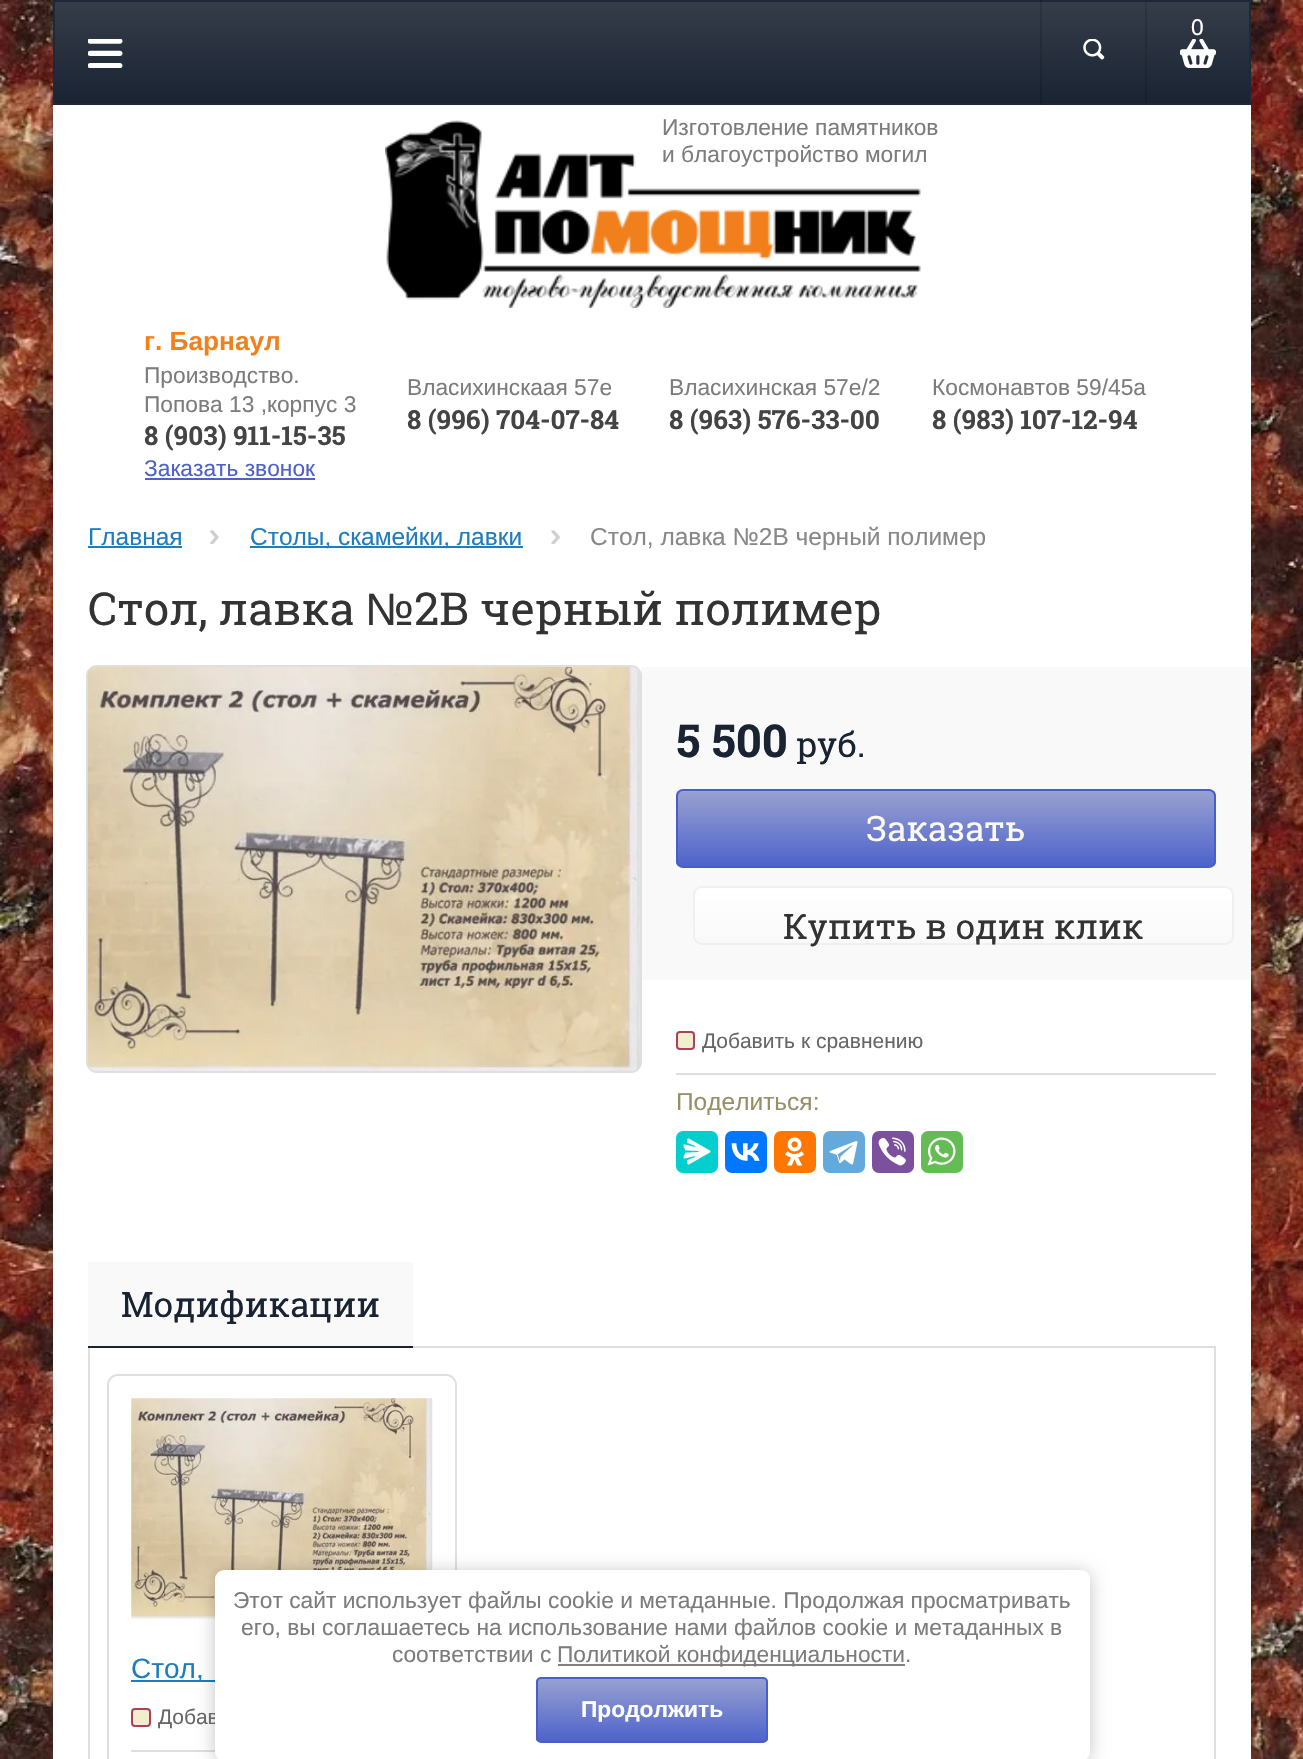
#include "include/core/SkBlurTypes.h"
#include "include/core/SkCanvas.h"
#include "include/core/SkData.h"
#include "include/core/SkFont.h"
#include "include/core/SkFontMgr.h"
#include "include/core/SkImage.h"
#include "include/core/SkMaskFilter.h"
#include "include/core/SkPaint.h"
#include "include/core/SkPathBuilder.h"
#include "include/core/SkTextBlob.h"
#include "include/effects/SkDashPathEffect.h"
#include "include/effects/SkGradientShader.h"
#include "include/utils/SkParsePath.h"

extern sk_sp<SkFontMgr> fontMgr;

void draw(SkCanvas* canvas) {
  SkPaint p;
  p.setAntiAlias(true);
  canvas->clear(SK_ColorWHITE);
  canvas->drawImageRect(SkImages::DeferredFromEncodedData(SkData::MakeFromFileName("images/1.png")), SkRect::MakeLTRB(0, 0, 1303, 1759), SkSamplingOptions());
  p.setColor(SkColorSetARGB(26, 0, 0, 0));
  p.setMaskFilter(SkMaskFilter::MakeBlur(kNormal_SkBlurStyle, 17.5f));
  canvas->drawRect(SkRect::MakeLTRB(53, 0, 1251, 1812), p);
  p.setMaskFilter(nullptr);
  {
    const SkColor colors[] = {SkColorSetRGB(54, 61, 73), SkColorSetRGB(25, 35, 50)};
    const float stops[] = {0, 1};
    const SkPoint ends[] = {{652, 1.7f}, {652, 103}};
    p.setShader(SkGradientShader::MakeLinear(ends, colors, stops, 2, SkTileMode::kClamp));
    p.setAlpha(255);
  }
  canvas->drawRect(SkRect::MakeLTRB(55, 2, 1249, 103), p);
  p.setStyle(SkPaint::kStroke_Style);
  p.setStrokeWidth(2);
  p.setShader(nullptr);
  p.setColor(SkColorSetRGB(29, 41, 59));
  canvas->drawRect(SkRect::MakeLTRB(54, 1, 1250, 104), p);
  canvas->drawImageRect(SkImages::DeferredFromEncodedData(SkData::MakeFromFileName("images/2.png")), SkRect::MakeLTRB(1083, 39, 1105, 60), SkSamplingOptions());
  p.setStyle(SkPaint::kFill_Style);
  p.setColor(SkColorSetARGB(36, 0, 0, 0));
  canvas->drawRect(SkRect::MakeLTRB(1040, 0, 1042, 105), p);
  canvas->drawRect(SkRect::MakeLTRB(1145, 2, 1147, 103), p);
  canvas->drawImageRect(SkImages::DeferredFromEncodedData(SkData::MakeFromFileName("images/3.png")), SkRect::MakeLTRB(1180, 39, 1216, 68), SkSamplingOptions());
  canvas->drawImageRect(SkImages::DeferredFromEncodedData(SkData::MakeFromFileName("images/4.png")), SkRect::MakeLTRB(88, 39, 123, 68), SkSamplingOptions());
  p.setColor(SK_ColorWHITE);
  canvas->drawRect(SkRect::MakeLTRB(53, 105, 1251, 1759), p);
  canvas->drawImageRect(SkImages::DeferredFromEncodedData(SkData::MakeFromFileName("images/5.png")), SkRect::MakeLTRB(385, 120, 921, 308), SkSamplingOptions());
  p.setColor(SkColorSetRGB(76, 97, 202));
  canvas->drawRect(SkRect::MakeLTRB(145, 478, 315, 480), p);
  p.setColor(SkColorSetRGB(30, 125, 191));
  canvas->drawRect(SkRect::MakeLTRB(88, 546, 182, 548), p);
  canvas->drawImageRect(SkImages::DeferredFromEncodedData(SkData::MakeFromFileName("images/6.png")), SkRect::MakeLTRB(210, 530, 219, 544), SkSamplingOptions());
  canvas->drawRect(SkRect::MakeLTRB(250, 546, 523, 548), p);
  canvas->drawImageRect(SkImages::DeferredFromEncodedData(SkData::MakeFromFileName("images/7.png")), SkRect::MakeLTRB(551, 530, 560, 544), SkSamplingOptions());
  p.setColor(SkColorSetRGB(249, 249, 249));
  canvas->drawRect(SkRect::MakeLTRB(641, 667, 1251, 980), p);
  p.setStyle(SkPaint::kStroke_Style);
  p.setColor(SkColorSetRGB(223, 223, 223));
  canvas->drawRoundRect(SkRect::MakeLTRB(87, 666, 641, 1072), 10, 10, p);
  canvas->drawImageRect(SkImages::DeferredFromEncodedData(SkData::MakeFromFileName("images/8.png")), SkRect::MakeLTRB(87, 666, 640, 1071), SkSamplingOptions());
  canvas->save();
  canvas->clipPath(SkPathBuilder().moveTo(683, 789).lineTo(1209, 789).cubicTo(1213, 789, 1216, 792, 1216, 796).lineTo(1216, 861).cubicTo(1216, 865, 1213, 868, 1209, 868).lineTo(683, 868).cubicTo(679, 868, 676, 865, 676, 861).lineTo(676, 796).cubicTo(676, 792, 679, 789, 683, 789).close().detach(), true);
  p.setStyle(SkPaint::kFill_Style);
  {
    const SkColor colors[] = {SkColorSetRGB(152, 161, 208), SkColorSetRGB(78, 99, 204)};
    const float stops[] = {0, 1};
    const SkPoint ends[] = {{946, 791}, {946, 866}};
    p.setShader(SkGradientShader::MakeLinear(ends, colors, stops, 2, SkTileMode::kClamp));
    p.setAlpha(255);
  }
  canvas->drawRect(SkRect::MakeLTRB(676, 791, 1216, 866), p);
  canvas->restore();
  p.setStyle(SkPaint::kStroke_Style);
  p.setShader(nullptr);
  p.setColor(SkColorSetRGB(72, 94, 202));
  canvas->drawRoundRect(SkRect::MakeLTRB(677, 790, 1215, 867), 6, 6, p);
  canvas->save();
  canvas->clipPath(SkPathBuilder().moveTo(702, 886).lineTo(1225, 886).cubicTo(1230, 886, 1234, 890, 1234, 895).lineTo(1234, 936).cubicTo(1234, 941, 1230, 945, 1225, 945).lineTo(702, 945).cubicTo(697, 945, 693, 941, 693, 936).lineTo(693, 895).cubicTo(693, 890, 697, 886, 702, 886).close().detach(), true);
  p.setStyle(SkPaint::kFill_Style);
  {
    const SkColor colors[] = {SK_ColorWHITE, SkColorSetRGB(249, 249, 249)};
    const float stops[] = {0, 1};
    const SkPoint ends[] = {{963, 887}, {963, 943}};
    p.setShader(SkGradientShader::MakeLinear(ends, colors, stops, 2, SkTileMode::kClamp));
    p.setAlpha(255);
  }
  canvas->drawRect(SkRect::MakeLTRB(693, 887, 1234, 943), p);
  canvas->restore();
  p.setStyle(SkPaint::kStroke_Style);
  p.setShader(nullptr);
  p.setColor(SkColorSetRGB(240, 240, 240));
  canvas->drawRoundRect(SkRect::MakeLTRB(694, 887, 1233, 944), 8, 8, p);
  p.setStyle(SkPaint::kFill_Style);
  p.setColor(SkColorSetRGB(222, 222, 222));
  canvas->drawRect(SkRect::MakeLTRB(676, 1073, 1216, 1075), p);
  p.setColor(SkColorSetRGB(241, 237, 207));
  canvas->drawRoundRect(SkRect::MakeLTRB(677, 1032, 694, 1049), 3, 3, p);
  p.setStyle(SkPaint::kStroke_Style);
  p.setColor(SkColorSetRGB(172, 64, 90));
  canvas->drawRoundRect(SkRect::MakeLTRB(677, 1032, 694, 1049), 3, 3, p);
  p.setStyle(SkPaint::kFill_Style);
  p.setColor(SkColorSetRGB(3, 206, 206));
  canvas->drawRoundRect(SkRect::MakeLTRB(676, 1131, 718, 1173), 7, 7, p);
  canvas->drawImageRect(SkImages::DeferredFromEncodedData(SkData::MakeFromFileName("images/9.png")), SkRect::MakeLTRB(683, 1138, 711, 1165), SkSamplingOptions());
  p.setColor(SkColorSetRGB(0, 119, 255));
  canvas->drawRoundRect(SkRect::MakeLTRB(725, 1131, 767, 1173), 7, 7, p);
  canvas->drawImageRect(SkImages::DeferredFromEncodedData(SkData::MakeFromFileName("images/10.png")), SkRect::MakeLTRB(731, 1143, 760, 1161), SkSamplingOptions());
  p.setColor(SkColorSetRGB(255, 119, 0));
  canvas->drawRoundRect(SkRect::MakeLTRB(774, 1131, 816, 1173), 7, 7, p);
  canvas->drawImageRect(SkImages::DeferredFromEncodedData(SkData::MakeFromFileName("images/11.png")), SkRect::MakeLTRB(785, 1137, 804, 1166), SkSamplingOptions());
  p.setColor(SkColorSetRGB(100, 169, 220));
  canvas->drawRoundRect(SkRect::MakeLTRB(823, 1131, 865, 1173), 7, 7, p);
  canvas->drawImageRect(SkImages::DeferredFromEncodedData(SkData::MakeFromFileName("images/12.png")), SkRect::MakeLTRB(829, 1141, 858, 1165), SkSamplingOptions());
  p.setColor(SkColorSetRGB(123, 81, 157));
  canvas->drawRoundRect(SkRect::MakeLTRB(872, 1131, 914, 1173), 7, 7, p);
  canvas->drawImageRect(SkImages::DeferredFromEncodedData(SkData::MakeFromFileName("images/13.png")), SkRect::MakeLTRB(878, 1137, 906, 1166), SkSamplingOptions());
  p.setColor(SkColorSetRGB(101, 188, 84));
  canvas->drawRoundRect(SkRect::MakeLTRB(921, 1131, 963, 1173), 7, 7, p);
  canvas->drawImageRect(SkImages::DeferredFromEncodedData(SkData::MakeFromFileName("images/14.png")), SkRect::MakeLTRB(927, 1137, 956, 1166), SkSamplingOptions());
  p.setColor(SkColorSetRGB(249, 249, 249));
  canvas->drawRect(SkRect::MakeLTRB(88, 1262, 413, 1346), p);
  p.setStyle(SkPaint::kStroke_Style);
  p.setColor(SkColorSetRGB(223, 223, 223));
  canvas->drawRect(SkRect::MakeLTRB(89, 1347, 1215, 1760), p);
  p.setStyle(SkPaint::kFill_Style);
  p.setColor(SkColorSetRGB(25, 35, 50));
  canvas->drawRect(SkRect::MakeLTRB(88, 1346, 413, 1348), p);
  p.setStyle(SkPaint::kStroke_Style);
  p.setColor(SkColorSetRGB(223, 223, 223));
  canvas->drawRoundRect(SkRect::MakeLTRB(108, 1375, 456, 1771), 10, 10, p);
  p.setStyle(SkPaint::kFill_Style);
  p.setColor(SK_ColorWHITE);
  canvas->drawRoundRect(SkRect::MakeLTRB(109, 1376, 455, 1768), 9, 9, p);
  canvas->drawImageRect(SkImages::DeferredFromEncodedData(SkData::MakeFromFileName("images/15.png")), SkRect::MakeLTRB(131, 1398, 433, 1619), SkSamplingOptions());
  p.setColor(SkColorSetRGB(30, 125, 191));
  canvas->drawRect(SkRect::MakeLTRB(131, 1680, 215, 1682), p);
  p.setColor(SkColorSetRGB(222, 222, 222));
  canvas->drawRect(SkRect::MakeLTRB(131, 1750, 215, 1752), p);
  p.setColor(SkColorSetRGB(241, 237, 207));
  canvas->drawRoundRect(SkRect::MakeLTRB(132, 1709, 150, 1726), 3, 3, p);
  p.setStyle(SkPaint::kStroke_Style);
  p.setColor(SkColorSetRGB(172, 64, 90));
  canvas->drawRoundRect(SkRect::MakeLTRB(132, 1709, 150, 1726), 3, 3, p);
  p.setStyle(SkPaint::kFill_Style);
  p.setColor(SkColorSetARGB(59, 0, 0, 0));
  p.setMaskFilter(SkMaskFilter::MakeBlur(kNormal_SkBlurStyle, 9));
  canvas->drawRoundRect(SkRect::MakeLTRB(215, 1572, 1090, 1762), 9, 9, p);
  p.setMaskFilter(nullptr);
  SkFont font1(fontMgr->matchFamilyStyle("Liberation Sans", SkFontStyle::Normal()), 22.75f);
  font1.setSubpixel(true);
  p.setColor(SK_ColorWHITE);
  canvas->drawString("0", 1191, 35, font1, p);
  p.setColor(SkColorSetRGB(124, 124, 124));
  canvas->drawString("Изготовление памятников", 662, 135, font1, p);
  canvas->drawString("и благоустройство могил", 662, 162, font1, p);
  SkFont font2(fontMgr->matchFamilyStyle("Liberation Sans", SkFontStyle::Bold()), 26.25f);
  font2.setSubpixel(true);
  p.setColor(SkColorSetRGB(241, 129, 28));
  canvas->drawString("г. Барнаул", 144, 350, font2, p);
  p.setColor(SkColorSetRGB(124, 124, 124));
  canvas->drawString("Производство.", 144, 383, font1, p);
  canvas->drawString("Попова 13 ,корпус 3", 144, 412, font1, p);
  SkFont font3(fontMgr->matchFamilyStyle("Roboto Slab", SkFontStyle::Bold()), 26.25f);
  font3.setSubpixel(true);
  p.setColor(SkColorSetRGB(68, 68, 68));
  canvas->drawString("8 (903) 911-15-35", 144, 445, font3, p);
  p.setColor(SkColorSetRGB(76, 97, 202));
  canvas->drawString("Заказать звонок", 144, 476, font1, p);
  p.setColor(SkColorSetRGB(124, 124, 124));
  canvas->drawString("Власихинскаая 57е", 407, 395, font1, p);
  p.setColor(SkColorSetRGB(68, 68, 68));
  canvas->drawString("8 (996) 704-07-84", 407, 429, font3, p);
  p.setColor(SkColorSetRGB(124, 124, 124));
  canvas->drawString("Власихинская 57е/2", 669, 395, font1, p);
  p.setColor(SkColorSetRGB(68, 68, 68));
  canvas->drawString("8 (963) 576-33-00", 669, 429, font3, p);
  p.setColor(SkColorSetRGB(124, 124, 124));
  canvas->drawString("Космонавтов 59/45а", 932, 395, font1, p);
  p.setColor(SkColorSetRGB(68, 68, 68));
  canvas->drawString("8 (983) 107-12-94", 932, 429, font3, p);
  SkFont font4(fontMgr->matchFamilyStyle("Liberation Sans", SkFontStyle::Normal()), 24.5f);
  font4.setSubpixel(true);
  p.setColor(SkColorSetRGB(30, 125, 191));
  canvas->drawString("Главная", 88, 545, font4, p);
  canvas->drawString("Столы, скамейки, лавки", 250, 545, font4, p);
  p.setColor(SkColorSetRGB(136, 136, 136));
  canvas->drawString("Стол, лавка №2В черный полимер", 590, 545, font4, p);
  SkFont font5(fontMgr->matchFamilyStyle("Roboto Slab", SkFontStyle::Normal()), 45.5f);
  font5.setSubpixel(true);
  p.setColor(SkColorSetRGB(51, 51, 51));
  canvas->drawString("Стол, лавка", 88, 625, font5, p);
  SkFont font6(fontMgr->matchFamilyStyle("Liberation Sans", SkFontStyle::Normal()), 45.5f);
  font6.setSubpixel(true);
  canvas->drawString("№", 365, 625, font6, p);
  canvas->drawString("2В черный полимер", 414, 625, font5, p);
  SkFont font7(fontMgr->matchFamilyStyle("Roboto Slab", SkFontStyle::Bold()), 45.5f);
  font7.setSubpixel(true);
  p.setColor(SkColorSetRGB(25, 35, 50));
  canvas->drawString("5 500", 676, 757, font7, p);
  SkFont font8(fontMgr->matchFamilyStyle("Roboto Slab", SkFontStyle::Normal()), 35);
  font8.setSubpixel(true);
  canvas->drawString("руб.", 796, 757, font8, p);
  p.setColor(SkColorSetRGB(253, 249, 238));
  canvas->drawString("Заказать", 866, 841, font8, p);
  p.setColor(SkColorSetRGB(51, 51, 51));
  canvas->drawString("Купить в один клик", 783, 939, font8, p);
  SkFont font9(fontMgr->matchFamilyStyle("Liberation Sans", SkFontStyle::Normal()), 21);
  font9.setSubpixel(true);
  p.setColor(SkColorSetRGB(102, 102, 102));
  canvas->drawString("Добавить к сравнению", 702, 1048, font9, p);
  p.setColor(SkColorSetRGB(152, 142, 104));
  canvas->drawString("Поделиться:", 676, 1110, font4, p);
  p.setColor(SkColorSetRGB(25, 35, 50));
  canvas->drawString("Модификации", 121, 1317, font8, p);
  SkFont font10(fontMgr->matchFamilyStyle("Liberation Sans", SkFontStyle::Normal()), 28);
  font10.setSubpixel(true);
  p.setColor(SkColorSetRGB(30, 125, 191));
  canvas->drawString("Стол,", 131, 1678, font10, p);
  p.setColor(SkColorSetRGB(102, 102, 102));
  canvas->drawString("Добав", 158, 1724, font9, p);
  p.setColor(SK_ColorWHITE);
  canvas->drawRoundRect(SkRect::MakeLTRB(215, 1570, 1090, 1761), 9, 9, p);
  p.setColor(SkColorSetRGB(124, 124, 124));
  canvas->drawString("Этот сайт использует файлы cookie и метаданные. Продолжая просматривать", 233, 1608, font1, p);
  canvas->drawString("его, вы соглашаетесь на использование нами файлов cookie и метаданных в", 241, 1635, font1, p);
  canvas->drawString("соответствии с", 392, 1662, font1, p);
  p.setColor(SkColorSetRGB(128, 128, 128));
  canvas->drawRect(SkRect::MakeLTRB(558, 1664, 905, 1666), p);
  p.setColor(SkColorSetRGB(124, 124, 124));
  canvas->drawString("Политикой конфиденциальности.", 557, 1662, font1, p);
  canvas->save();
  canvas->clipPath(SkPathBuilder().moveTo(541, 1677).lineTo(763, 1677).cubicTo(766, 1677, 768, 1679, 768, 1682).lineTo(768, 1738).cubicTo(768, 1741, 766, 1743, 763, 1743).lineTo(541, 1743).cubicTo(538, 1743, 536, 1741, 536, 1738).lineTo(536, 1682).cubicTo(536, 1679, 538, 1677, 541, 1677).close().detach(), true);
  {
    const SkColor colors[] = {SkColorSetRGB(152, 161, 208), SkColorSetRGB(78, 99, 204)};
    const float stops[] = {0, 1};
    const SkPoint ends[] = {{652, 1678}, {652, 1741}};
    p.setShader(SkGradientShader::MakeLinear(ends, colors, stops, 2, SkTileMode::kClamp));
    p.setAlpha(255);
  }
  canvas->drawRect(SkRect::MakeLTRB(536, 1678, 768, 1741), p);
  canvas->restore();
  p.setStyle(SkPaint::kStroke_Style);
  p.setShader(nullptr);
  p.setColor(SkColorSetRGB(72, 94, 202));
  canvas->drawRoundRect(SkRect::MakeLTRB(537, 1678, 767, 1742), 4, 4, p);
  SkFont font11(fontMgr->matchFamilyStyle("Liberation Sans", SkFontStyle::Bold()), 22.75f);
  font11.setSubpixel(true);
  p.setStyle(SkPaint::kFill_Style);
  p.setColor(SK_ColorWHITE);
  canvas->drawString("Продолжить", 581, 1717, font11, p);
}
